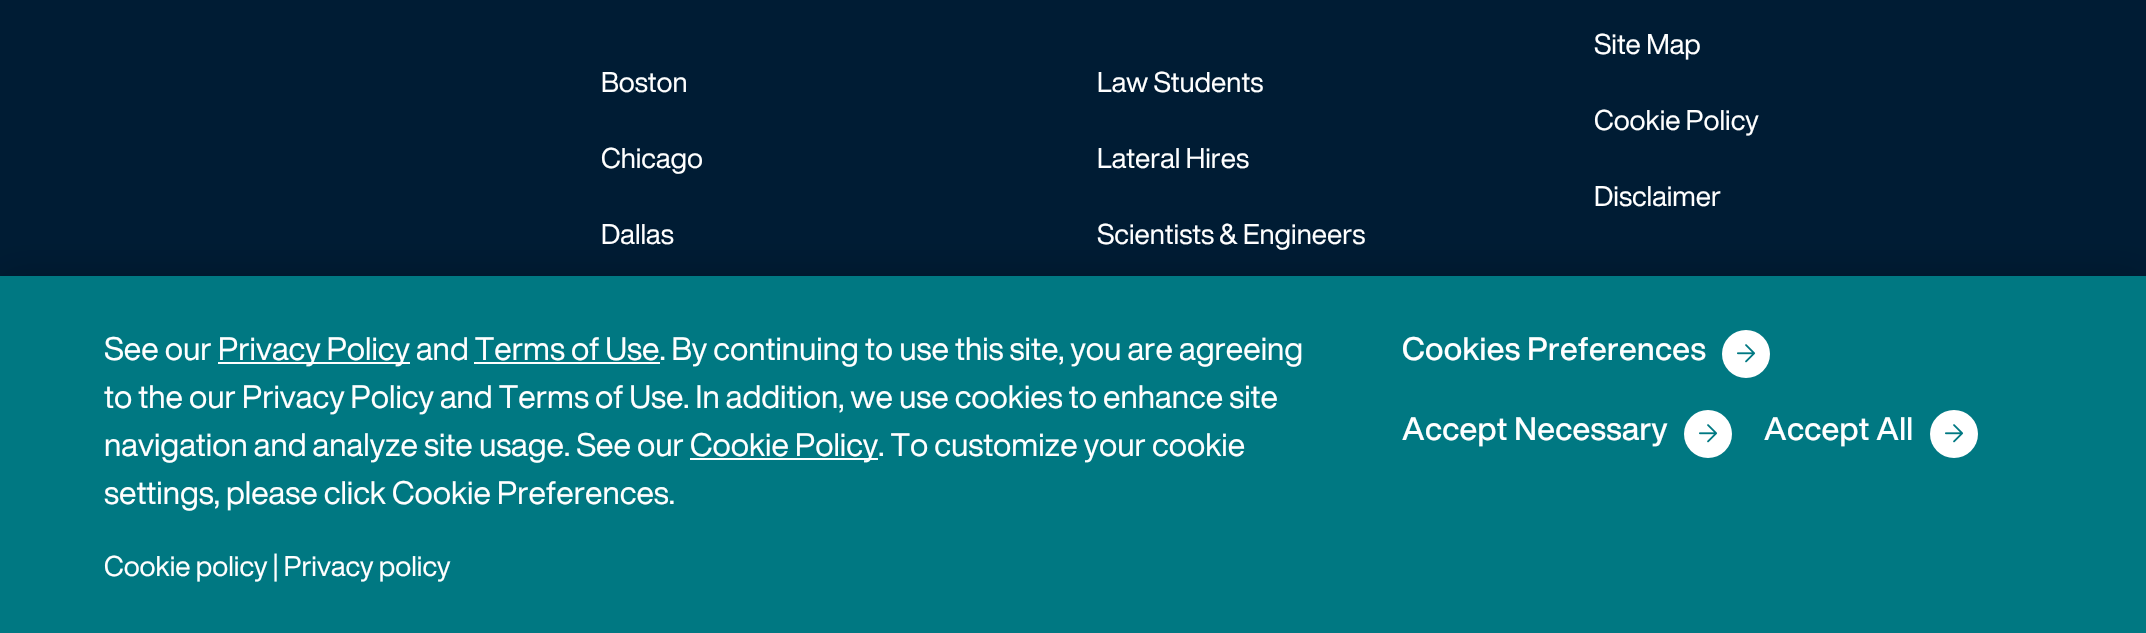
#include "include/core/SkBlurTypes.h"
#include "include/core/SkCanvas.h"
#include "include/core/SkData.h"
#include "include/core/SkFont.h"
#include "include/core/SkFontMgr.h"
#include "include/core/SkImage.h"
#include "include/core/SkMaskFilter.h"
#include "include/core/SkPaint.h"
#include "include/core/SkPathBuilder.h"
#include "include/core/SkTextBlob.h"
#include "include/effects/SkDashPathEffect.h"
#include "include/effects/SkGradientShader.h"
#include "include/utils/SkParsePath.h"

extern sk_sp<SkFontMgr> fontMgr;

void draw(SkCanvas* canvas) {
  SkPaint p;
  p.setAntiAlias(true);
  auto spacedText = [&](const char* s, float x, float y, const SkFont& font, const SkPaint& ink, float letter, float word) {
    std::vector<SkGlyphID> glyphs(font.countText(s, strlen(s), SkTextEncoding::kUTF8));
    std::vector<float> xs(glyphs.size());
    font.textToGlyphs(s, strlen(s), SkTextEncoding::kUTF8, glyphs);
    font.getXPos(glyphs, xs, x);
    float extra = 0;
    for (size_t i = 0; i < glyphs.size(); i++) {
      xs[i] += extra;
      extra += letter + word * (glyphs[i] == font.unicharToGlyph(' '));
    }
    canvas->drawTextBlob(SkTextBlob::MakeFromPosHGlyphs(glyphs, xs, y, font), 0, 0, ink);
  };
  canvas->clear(SkColorSetRGB(0, 28, 52));
  p.setColor(SkColorSetARGB(51, 0, 0, 0));
  p.setMaskFilter(SkMaskFilter::MakeBlur(kNormal_SkBlurStyle, 18));
  canvas->drawRect(SkRect::MakeLTRB(0, 276, 2146, 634), p);
  p.setMaskFilter(nullptr);
  p.setColor(SkColorSetRGB(0, 120, 130));
  canvas->drawRect(SkRect::MakeLTRB(0, 276, 2146, 633), p);
  p.setColor(SK_ColorWHITE);
  canvas->drawRect(SkRect::MakeLTRB(218, 362, 410, 364), p);
  canvas->drawRect(SkRect::MakeLTRB(474, 362, 660, 364), p);
  canvas->drawRect(SkRect::MakeLTRB(690, 458, 878, 460), p);
  canvas->drawCircle(1746, 354, 24, p);
  canvas->drawImageRect(SkImages::DeferredFromEncodedData(SkData::MakeFromFileName("images/1.png")), SkRect::MakeLTRB(1737, 344, 1756, 363), SkSamplingOptions());
  canvas->drawCircle(1708, 434, 24, p);
  canvas->drawImageRect(SkImages::DeferredFromEncodedData(SkData::MakeFromFileName("images/1.png")), SkRect::MakeLTRB(1699, 424, 1718, 443), SkSamplingOptions());
  canvas->drawCircle(1954, 434, 24, p);
  canvas->drawImageRect(SkImages::DeferredFromEncodedData(SkData::MakeFromFileName("images/1.png")), SkRect::MakeLTRB(1945, 424, 1964, 443), SkSamplingOptions());
  SkFont font1(fontMgr->matchFamilyStyle("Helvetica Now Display", SkFontStyle::Normal()), 28);
  font1.setSubpixel(true);
  canvas->drawString("Boston", 601, 92, font1, p);
  canvas->drawString("Chicago", 601, 168, font1, p);
  canvas->drawString("Dallas", 601, 244, font1, p);
  canvas->drawString("Law Students", 1097, 92, font1, p);
  canvas->drawString("Lateral Hires", 1097, 168, font1, p);
  canvas->drawString("Scientists & Engineers", 1097, 244, font1, p);
  canvas->drawString("Site Map", 1594, 54, font1, p);
  canvas->drawString("Cookie Policy", 1594, 130, font1, p);
  canvas->drawString("Disclaimer", 1594, 206, font1, p);
  SkFont font2(fontMgr->matchFamilyStyle("Helvetica Now Display", SkFontStyle::Normal()), 32);
  font2.setSubpixel(true);
  canvas->drawString("See our", 104, 360, font2, p);
  canvas->drawString("Privacy Policy and Terms of Use. By continuing to use this site, you are agreeing", 218, 360, font2, p);
  canvas->drawString("to the our Privacy Policy and Terms of Use. In addition, we use cookies to enhance site", 104, 408, font2, p);
  canvas->drawString("navigation and analyze site usage. See our", 104, 456, font2, p);
  canvas->drawString("Cookie Policy. To customize your cookie", 690, 456, font2, p);
  canvas->drawString("settings, please click Cookie Preferences.", 104, 504, font2, p);
  canvas->drawString("Cookie policy | Privacy policy", 104, 576, font1, p);
  SkFont font3(fontMgr->matchFamilyStyle("Helvetica Now Display", SkFontStyle(500, SkFontStyle::kNormal_Width, SkFontStyle::kUpright_Slant)), 32);
  font3.setSubpixel(true);
  spacedText("Cookies Preferences", 1402, 360, font3, p, 0.3f, 0);
  spacedText("Accept Necessary", 1402, 440, font3, p, 0.3f, 0);
  spacedText("Accept All", 1764, 440, font3, p, 0.3f, 0);
}
